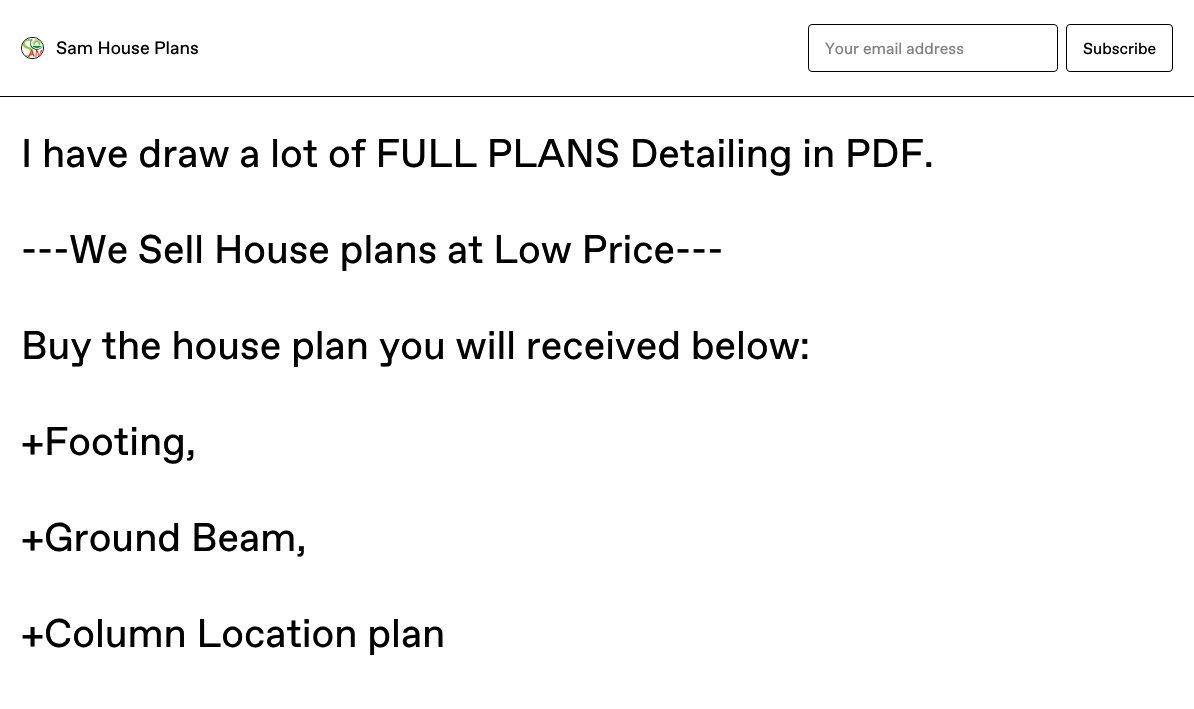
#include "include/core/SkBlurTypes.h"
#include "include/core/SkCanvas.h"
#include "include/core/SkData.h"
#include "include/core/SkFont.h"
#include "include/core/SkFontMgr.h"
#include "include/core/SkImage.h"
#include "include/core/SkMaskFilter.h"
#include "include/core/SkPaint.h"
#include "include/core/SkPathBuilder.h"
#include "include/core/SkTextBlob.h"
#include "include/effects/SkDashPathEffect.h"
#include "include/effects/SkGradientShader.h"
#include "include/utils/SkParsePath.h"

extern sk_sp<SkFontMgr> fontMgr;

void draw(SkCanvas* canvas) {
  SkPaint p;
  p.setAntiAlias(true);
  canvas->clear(SK_ColorWHITE);
  p.setColor(SK_ColorBLACK);
  canvas->drawRect(SkRect::MakeLTRB(0, 96, 1194, 97), p);
  p.setStyle(SkPaint::kStroke_Style);
  p.setStrokeWidth(1);
  canvas->drawRoundRect(SkRect::MakeLTRB(21.5f, 37.5f, 43.5f, 58.5f), 10.5f, 10.5f, p);
  canvas->drawImageRect(SkImages::DeferredFromEncodedData(SkData::MakeFromFileName("images/1.png")), SkRect::MakeLTRB(22, 38, 43, 58), SkSamplingOptions());
  canvas->drawRoundRect(SkRect::MakeLTRB(808.5f, 24.5f, 1057.5f, 71.5f), 3.5f, 3.5f, p);
  canvas->drawRoundRect(SkRect::MakeLTRB(1066.5f, 24.5f, 1172.5f, 71.5f), 3.5f, 3.5f, p);
  SkFont font1(fontMgr->matchFamilyStyle("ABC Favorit", SkFontStyle::Normal()), 18);
  font1.setSubpixel(true);
  p.setStyle(SkPaint::kFill_Style);
  canvas->drawString("Sam House Plans", 56, 54, font1, p);
  SkFont font2(fontMgr->matchFamilyStyle("ABC Favorit", SkFontStyle::Normal()), 16);
  font2.setSubpixel(true);
  p.setColor(SkColorSetRGB(128, 128, 128));
  canvas->drawString("Your email address", 825, 54, font2, p);
  p.setColor(SK_ColorBLACK);
  canvas->drawString("Subscribe", 1083, 54, font2, p);
  SkFont font3(fontMgr->matchFamilyStyle("ABC Favorit", SkFontStyle::Normal()), 40);
  font3.setSubpixel(true);
  canvas->drawString("I have draw a lot of FULL PLANS Detailing in PDF.", 21, 167, font3, p);
  canvas->drawString("---We Sell House plans at Low Price---", 21, 263, font3, p);
  canvas->drawString("Buy the house plan you will received below:", 21, 359, font3, p);
  canvas->drawString("+Footing,", 21, 455, font3, p);
  canvas->drawString("+Ground Beam,", 21, 551, font3, p);
  canvas->drawString("+Column Location plan", 21, 647, font3, p);
}
